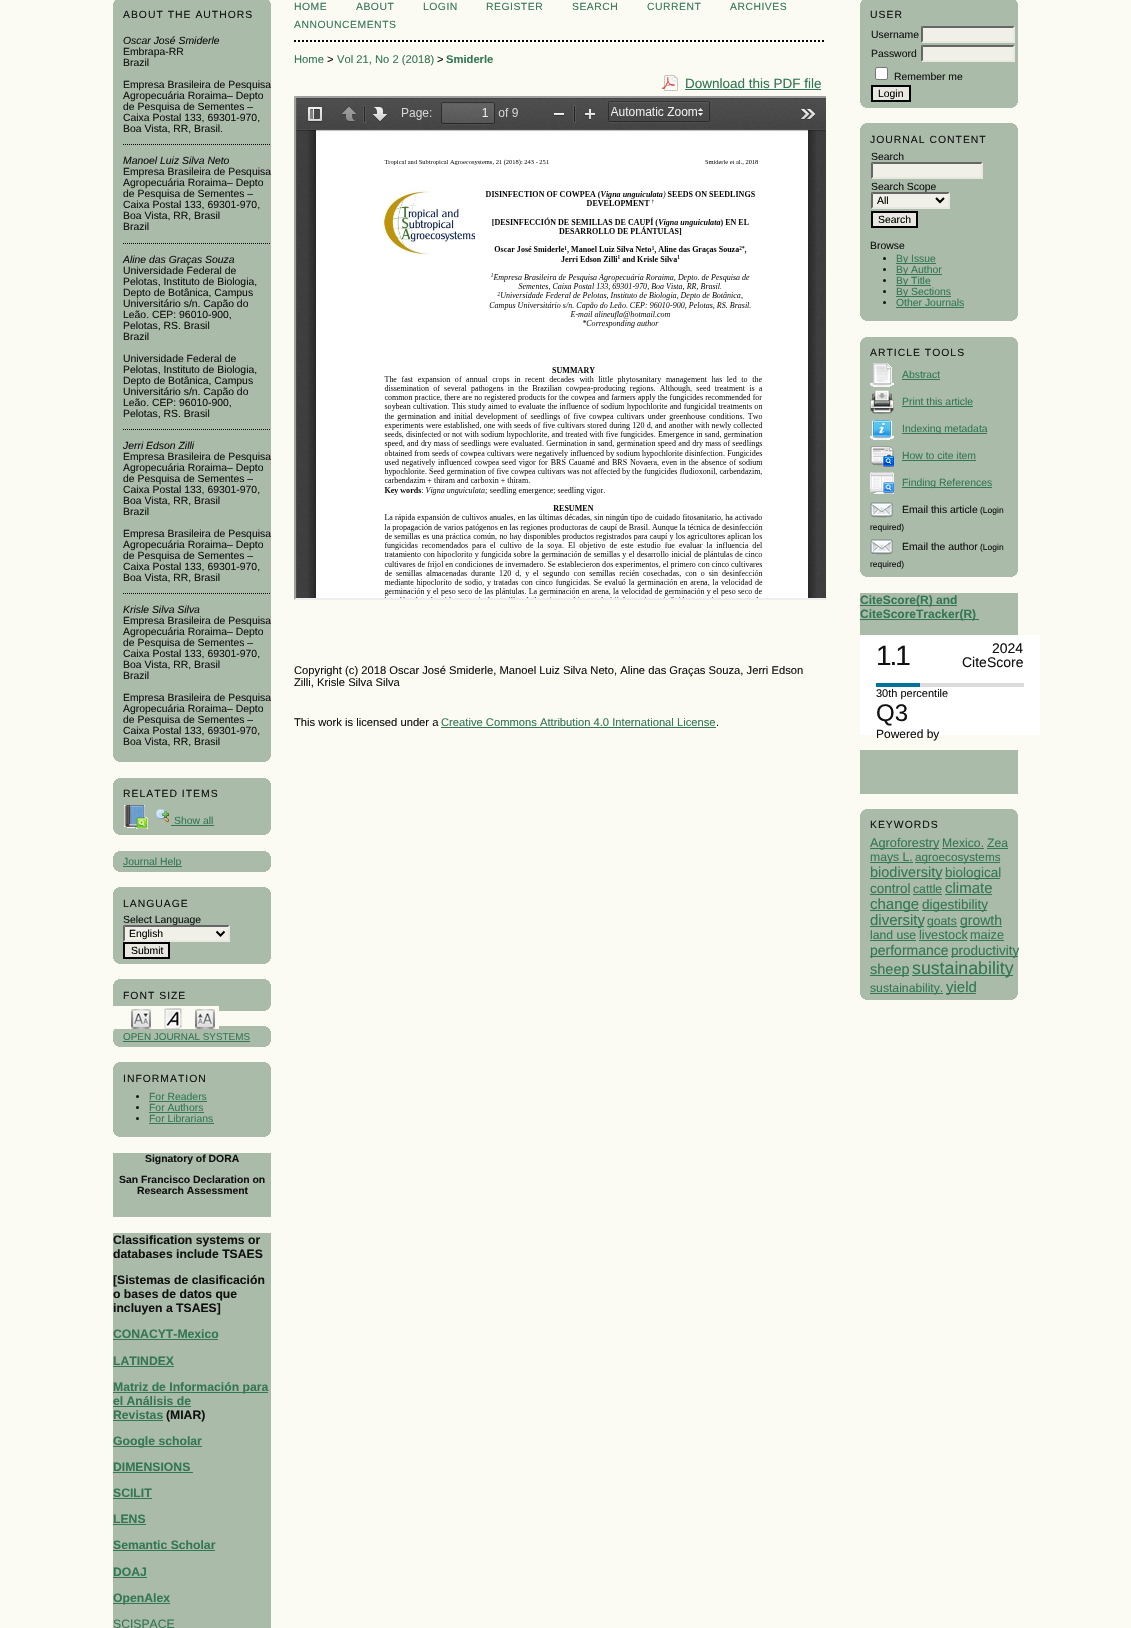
#include "include/core/SkBlurTypes.h"
#include "include/core/SkCanvas.h"
#include "include/core/SkData.h"
#include "include/core/SkFont.h"
#include "include/core/SkFontMgr.h"
#include "include/core/SkImage.h"
#include "include/core/SkMaskFilter.h"
#include "include/core/SkPaint.h"
#include "include/core/SkPathBuilder.h"
#include "include/core/SkTextBlob.h"
#include "include/effects/SkDashPathEffect.h"
#include "include/effects/SkGradientShader.h"
#include "include/utils/SkParsePath.h"

extern sk_sp<SkFontMgr> fontMgr;

void draw(SkCanvas* canvas) {
  SkPaint p;
  p.setAntiAlias(true);
  auto spacedText = [&](const char* s, float x, float y, const SkFont& font, const SkPaint& ink, float letter, float word) {
    std::vector<SkGlyphID> glyphs(font.countText(s, strlen(s), SkTextEncoding::kUTF8));
    std::vector<float> xs(glyphs.size());
    font.textToGlyphs(s, strlen(s), SkTextEncoding::kUTF8, glyphs);
    font.getXPos(glyphs, xs, x);
    float extra = 0;
    for (size_t i = 0; i < glyphs.size(); i++) {
      xs[i] += extra;
      extra += letter + word * (glyphs[i] == font.unicharToGlyph(' '));
    }
    canvas->drawTextBlob(SkTextBlob::MakeFromPosHGlyphs(glyphs, xs, y, font), 0, 0, ink);
  };
  canvas->clear(SkColorSetRGB(251, 251, 243));
  p.setStyle(SkPaint::kStroke_Style);
  p.setStrokeWidth(2);
  p.setColor(SK_ColorBLACK);
  p.setPathEffect(SkDashPathEffect::Make({{2, 2}}, 0));
  canvas->drawPath(SkPathBuilder().moveTo(294, 41).lineTo(826, 41).detach(), p);
  p.setPathEffect(nullptr);
  canvas->drawImageRect(SkImages::DeferredFromEncodedData(SkData::MakeFromFileName("images/1.png")), SkRect::MakeLTRB(662, 75, 678, 91), SkSamplingOptions());
  p.setStyle(SkPaint::kFill_Style);
  p.setColor(SkColorSetRGB(51, 119, 85));
  canvas->drawRect(SkRect::MakeLTRB(685, 89, 821, 90), p);
  canvas->save();
  canvas->clipRect(SkRect::MakeLTRB(294, 0, 826, 760));
  p.setColor(SkColorSetRGB(159, 159, 159));
  canvas->drawPath(SkPathBuilder().moveTo(294, 96).lineTo(830, 96).lineTo(828, 98).lineTo(296, 98).close().detach(), p);
  p.setColor(SkColorSetRGB(238, 238, 238));
  canvas->drawPath(SkPathBuilder().moveTo(830, 600).lineTo(294, 600).lineTo(296, 598).lineTo(828, 598).close().detach(), p);
  canvas->restore();
  p.setColor(SkColorSetRGB(159, 159, 159));
  canvas->drawPath(SkPathBuilder().moveTo(294, 600).lineTo(294, 96).lineTo(296, 98).lineTo(296, 598).close().detach(), p);
  canvas->drawImageRect(SkImages::DeferredFromEncodedData(SkData::MakeFromFileName("images/2.png")), SkRect::MakeLTRB(296, 98, 826, 598), SkSamplingOptions());
  p.setColor(SkColorSetRGB(51, 119, 85));
  canvas->drawRect(SkRect::MakeLTRB(441, 727, 716, 728), p);
  p.setColor(SkColorSetRGB(170, 187, 170));
  canvas->drawRect(SkRect::MakeLTRB(113, 3, 271, 757), p);
  canvas->drawRect(SkRect::MakeLTRB(115, 0, 269, 1), p);
  canvas->drawRect(SkRect::MakeLTRB(114, 1, 270, 3), p);
  p.setStyle(SkPaint::kStroke_Style);
  p.setStrokeWidth(1);
  p.setColor(SK_ColorBLACK);
  p.setPathEffect(SkDashPathEffect::Make({{1, 1}}, 0));
  canvas->drawPath(SkPathBuilder().moveTo(123, 144.5f).lineTo(271, 144.5f).detach(), p);
  p.setPathEffect(nullptr);
  p.setPathEffect(SkDashPathEffect::Make({{1, 1}}, 0));
  canvas->drawPath(SkPathBuilder().moveTo(123, 243.5f).lineTo(271, 243.5f).detach(), p);
  p.setPathEffect(nullptr);
  p.setPathEffect(SkDashPathEffect::Make({{1, 1}}, 0));
  canvas->drawPath(SkPathBuilder().moveTo(123, 429.5f).lineTo(271, 429.5f).detach(), p);
  p.setPathEffect(nullptr);
  p.setPathEffect(SkDashPathEffect::Make({{1, 1}}, 0));
  canvas->drawPath(SkPathBuilder().moveTo(123, 593.5f).lineTo(271, 593.5f).detach(), p);
  p.setPathEffect(nullptr);
  p.setStyle(SkPaint::kFill_Style);
  p.setColor(SkColorSetRGB(170, 187, 170));
  canvas->drawRect(SkRect::MakeLTRB(114, 757, 270, 759), p);
  canvas->drawRect(SkRect::MakeLTRB(115, 759, 269, 760), p);
  canvas->drawRect(SkRect::MakeLTRB(116, 760, 268, 761), p);
  canvas->drawRect(SkRect::MakeLTRB(118, 761, 266, 762), p);
  canvas->drawRect(SkRect::MakeLTRB(113, 783, 271, 830), p);
  canvas->drawRect(SkRect::MakeLTRB(118, 778, 266, 779), p);
  canvas->drawRect(SkRect::MakeLTRB(116, 779, 268, 780), p);
  canvas->drawRect(SkRect::MakeLTRB(115, 780, 269, 781), p);
  canvas->drawRect(SkRect::MakeLTRB(114, 781, 270, 783), p);
  canvas->drawImageRect(SkImages::DeferredFromEncodedData(SkData::MakeFromFileName("images/3.png")), SkRect::MakeLTRB(124, 805, 148, 829), SkSamplingOptions());
  canvas->drawImageRect(SkImages::DeferredFromEncodedData(SkData::MakeFromFileName("images/4.png")), SkRect::MakeLTRB(156, 809, 169, 823), SkSamplingOptions());
  p.setColor(SkColorSetRGB(51, 119, 85));
  canvas->drawRect(SkRect::MakeLTRB(171, 825, 214, 826), p);
  p.setColor(SkColorSetRGB(170, 187, 170));
  canvas->drawRect(SkRect::MakeLTRB(114, 830, 270, 832), p);
  canvas->drawRect(SkRect::MakeLTRB(115, 832, 269, 833), p);
  canvas->drawRect(SkRect::MakeLTRB(116, 833, 268, 834), p);
  canvas->drawRect(SkRect::MakeLTRB(118, 834, 266, 835), p);
  canvas->drawRect(SkRect::MakeLTRB(113, 856, 271, 867), p);
  canvas->drawRect(SkRect::MakeLTRB(118, 851, 266, 852), p);
  canvas->drawRect(SkRect::MakeLTRB(116, 852, 268, 853), p);
  canvas->drawRect(SkRect::MakeLTRB(115, 853, 269, 854), p);
  canvas->drawRect(SkRect::MakeLTRB(114, 854, 270, 856), p);
  p.setColor(SkColorSetRGB(51, 119, 85));
  canvas->drawRect(SkRect::MakeLTRB(123, 866, 182, 867), p);
  p.setColor(SkColorSetRGB(170, 187, 170));
  canvas->drawRect(SkRect::MakeLTRB(115, 869, 269, 870), p);
  canvas->drawRect(SkRect::MakeLTRB(116, 870, 268, 871), p);
  canvas->drawRect(SkRect::MakeLTRB(118, 871, 266, 872), p);
  canvas->drawRect(SkRect::MakeLTRB(113, 892, 271, 959), p);
  canvas->drawRect(SkRect::MakeLTRB(118, 887, 266, 888), p);
  canvas->drawRect(SkRect::MakeLTRB(116, 888, 268, 889), p);
  canvas->drawRect(SkRect::MakeLTRB(115, 889, 269, 890), p);
  canvas->drawRect(SkRect::MakeLTRB(114, 890, 270, 892), p);
  p.setColor(SkColorSetRGB(232, 232, 225));
  canvas->drawRect(SkRect::MakeLTRB(124, 943, 169, 958), p);
  p.setStyle(SkPaint::kStroke_Style);
  p.setStrokeWidth(2);
  p.setColor(SK_ColorBLACK);
  canvas->drawRect(SkRect::MakeLTRB(124, 943, 169, 958), p);
  p.setStyle(SkPaint::kFill_Style);
  p.setColor(SkColorSetRGB(170, 187, 170));
  canvas->drawRect(SkRect::MakeLTRB(114, 959, 270, 961), p);
  canvas->drawRect(SkRect::MakeLTRB(115, 961, 269, 962), p);
  canvas->drawRect(SkRect::MakeLTRB(116, 962, 268, 963), p);
  canvas->drawRect(SkRect::MakeLTRB(118, 963, 266, 964), p);
  canvas->drawRect(SkRect::MakeLTRB(113, 984, 271, 1006), p);
  canvas->drawRect(SkRect::MakeLTRB(118, 979, 266, 980), p);
  canvas->drawRect(SkRect::MakeLTRB(116, 980, 268, 981), p);
  canvas->drawRect(SkRect::MakeLTRB(115, 981, 269, 982), p);
  canvas->drawRect(SkRect::MakeLTRB(114, 982, 270, 984), p);
  canvas->drawImageRect(SkImages::DeferredFromEncodedData(SkData::MakeFromFileName("images/5.png")), SkRect::MakeLTRB(131, 1009, 151, 1029), SkSamplingOptions());
  canvas->drawImageRect(SkImages::DeferredFromEncodedData(SkData::MakeFromFileName("images/6.png")), SkRect::MakeLTRB(164, 1008, 182, 1029), SkSamplingOptions());
  canvas->drawImageRect(SkImages::DeferredFromEncodedData(SkData::MakeFromFileName("images/7.png")), SkRect::MakeLTRB(195, 1009, 215, 1029), SkSamplingOptions());
  canvas->drawRect(SkRect::MakeLTRB(219, 1006, 270, 1008), p);
  canvas->drawRect(SkRect::MakeLTRB(219, 1008, 269, 1009), p);
  canvas->drawRect(SkRect::MakeLTRB(219, 1009, 268, 1010), p);
  canvas->drawRect(SkRect::MakeLTRB(219, 1010, 266, 1011), p);
  canvas->drawRect(SkRect::MakeLTRB(113, 1031, 271, 1042), p);
  canvas->drawRect(SkRect::MakeLTRB(219, 1026, 266, 1027), p);
  canvas->drawRect(SkRect::MakeLTRB(219, 1027, 268, 1028), p);
  canvas->drawRect(SkRect::MakeLTRB(219, 1028, 269, 1029), p);
  canvas->drawRect(SkRect::MakeLTRB(114, 1029, 270, 1031), p);
  p.setColor(SkColorSetRGB(51, 119, 85));
  canvas->drawRect(SkRect::MakeLTRB(123, 1041, 250, 1042), p);
  p.setColor(SkColorSetRGB(170, 187, 170));
  canvas->drawRect(SkRect::MakeLTRB(114, 1042, 270, 1044), p);
  canvas->drawRect(SkRect::MakeLTRB(115, 1044, 269, 1045), p);
  canvas->drawRect(SkRect::MakeLTRB(116, 1045, 268, 1046), p);
  canvas->drawRect(SkRect::MakeLTRB(118, 1046, 266, 1047), p);
  canvas->drawRect(SkRect::MakeLTRB(113, 1067, 271, 1132), p);
  canvas->drawRect(SkRect::MakeLTRB(118, 1062, 266, 1063), p);
  canvas->drawRect(SkRect::MakeLTRB(116, 1063, 268, 1064), p);
  canvas->drawRect(SkRect::MakeLTRB(115, 1064, 269, 1065), p);
  canvas->drawRect(SkRect::MakeLTRB(114, 1065, 270, 1067), p);
  p.setColor(SkColorSetRGB(17, 17, 17));
  canvas->drawCircle(137.5f, 1096.5f, 1.5f, p);
  p.setColor(SkColorSetRGB(51, 119, 85));
  canvas->drawRect(SkRect::MakeLTRB(149, 1101, 207, 1102), p);
  p.setColor(SkColorSetRGB(17, 17, 17));
  canvas->drawCircle(137.5f, 1107.5f, 1.5f, p);
  p.setColor(SkColorSetRGB(51, 119, 85));
  canvas->drawRect(SkRect::MakeLTRB(149, 1112, 204, 1113), p);
  p.setColor(SkColorSetRGB(17, 17, 17));
  canvas->drawCircle(137.5f, 1118.5f, 1.5f, p);
  p.setColor(SkColorSetRGB(51, 119, 85));
  canvas->drawRect(SkRect::MakeLTRB(149, 1123, 214, 1124), p);
  p.setColor(SkColorSetRGB(170, 187, 170));
  canvas->drawRect(SkRect::MakeLTRB(114, 1132, 270, 1134), p);
  canvas->drawRect(SkRect::MakeLTRB(115, 1134, 269, 1135), p);
  canvas->drawRect(SkRect::MakeLTRB(116, 1135, 268, 1136), p);
  canvas->drawRect(SkRect::MakeLTRB(118, 1136, 266, 1137), p);
  canvas->drawRect(SkRect::MakeLTRB(113, 1153, 271, 1217), p);
  canvas->drawRect(SkRect::MakeLTRB(113, 1233, 271, 1628), p);
  p.setColor(SkColorSetRGB(51, 119, 85));
  canvas->drawRect(SkRect::MakeLTRB(113, 1339, 218, 1340), p);
  canvas->drawRect(SkRect::MakeLTRB(113, 1366, 174, 1367), p);
  canvas->drawRect(SkRect::MakeLTRB(113, 1392, 268, 1393), p);
  canvas->drawRect(SkRect::MakeLTRB(113, 1406, 191, 1407), p);
  canvas->drawRect(SkRect::MakeLTRB(113, 1420, 163, 1421), p);
  canvas->drawRect(SkRect::MakeLTRB(113, 1446, 202, 1447), p);
  canvas->drawRect(SkRect::MakeLTRB(113, 1472, 193, 1473), p);
  canvas->drawRect(SkRect::MakeLTRB(113, 1498, 152, 1499), p);
  canvas->drawRect(SkRect::MakeLTRB(113, 1524, 146, 1525), p);
  canvas->drawRect(SkRect::MakeLTRB(113, 1550, 215, 1551), p);
  canvas->drawRect(SkRect::MakeLTRB(113, 1577, 147, 1578), p);
  canvas->drawRect(SkRect::MakeLTRB(113, 1603, 170, 1604), p);
  p.setColor(SkColorSetRGB(170, 187, 170));
  canvas->drawRect(SkRect::MakeLTRB(860, 3, 1018, 103), p);
  canvas->drawRect(SkRect::MakeLTRB(862, 0, 1016, 1), p);
  canvas->drawRect(SkRect::MakeLTRB(861, 1, 1017, 3), p);
  p.setColor(SkColorSetRGB(240, 240, 232));
  canvas->drawRect(SkRect::MakeLTRB(921, 26, 1015, 43), p);
  p.setColor(SkColorSetRGB(102, 102, 102));
  canvas->drawPath(SkPathBuilder().moveTo(921, 26).lineTo(1015, 26).lineTo(1013, 28).lineTo(923, 28).close().detach(), p);
  p.setColor(SkColorSetRGB(232, 232, 225));
  canvas->drawPath(SkPathBuilder().moveTo(1015, 26).lineTo(1015, 43).lineTo(1013, 41).lineTo(1013, 28).close().detach(), p);
  canvas->drawPath(SkPathBuilder().moveTo(1015, 43).lineTo(921, 43).lineTo(923, 41).lineTo(1013, 41).close().detach(), p);
  p.setColor(SkColorSetRGB(102, 102, 102));
  canvas->drawPath(SkPathBuilder().moveTo(921, 43).lineTo(921, 26).lineTo(923, 28).lineTo(923, 41).close().detach(), p);
  p.setColor(SkColorSetRGB(240, 240, 232));
  canvas->drawRect(SkRect::MakeLTRB(921, 45, 1015, 62), p);
  p.setColor(SkColorSetRGB(102, 102, 102));
  canvas->drawPath(SkPathBuilder().moveTo(921, 45).lineTo(1015, 45).lineTo(1013, 47).lineTo(923, 47).close().detach(), p);
  p.setColor(SkColorSetRGB(232, 232, 225));
  canvas->drawPath(SkPathBuilder().moveTo(1015, 45).lineTo(1015, 62).lineTo(1013, 60).lineTo(1013, 47).close().detach(), p);
  canvas->drawPath(SkPathBuilder().moveTo(1015, 62).lineTo(921, 62).lineTo(923, 60).lineTo(1013, 60).close().detach(), p);
  p.setColor(SkColorSetRGB(102, 102, 102));
  canvas->drawPath(SkPathBuilder().moveTo(921, 62).lineTo(921, 45).lineTo(923, 47).lineTo(923, 60).close().detach(), p);
  p.setColor(SK_ColorWHITE);
  canvas->drawRoundRect(SkRect::MakeLTRB(875.5f, 67.5f, 887.5f, 79.5f), 1.5f, 1.5f, p);
  p.setStyle(SkPaint::kStroke_Style);
  p.setStrokeWidth(1);
  p.setColor(SkColorSetRGB(118, 118, 118));
  canvas->drawRoundRect(SkRect::MakeLTRB(875.5f, 67.5f, 887.5f, 79.5f), 1.5f, 1.5f, p);
  p.setStyle(SkPaint::kFill_Style);
  p.setColor(SkColorSetRGB(232, 232, 225));
  canvas->drawRect(SkRect::MakeLTRB(872, 86, 910, 101), p);
  p.setStyle(SkPaint::kStroke_Style);
  p.setStrokeWidth(2);
  p.setColor(SK_ColorBLACK);
  canvas->drawRect(SkRect::MakeLTRB(872, 86, 910, 101), p);
  p.setStyle(SkPaint::kFill_Style);
  p.setColor(SkColorSetRGB(170, 187, 170));
  canvas->drawRect(SkRect::MakeLTRB(861, 103, 1017, 105), p);
  canvas->drawRect(SkRect::MakeLTRB(862, 105, 1016, 106), p);
  canvas->drawRect(SkRect::MakeLTRB(863, 106, 1015, 107), p);
  canvas->drawRect(SkRect::MakeLTRB(865, 107, 1013, 108), p);
  canvas->drawRect(SkRect::MakeLTRB(860, 128, 1018, 316), p);
  canvas->drawRect(SkRect::MakeLTRB(865, 123, 1013, 124), p);
  canvas->drawRect(SkRect::MakeLTRB(863, 124, 1015, 125), p);
  canvas->drawRect(SkRect::MakeLTRB(862, 125, 1016, 126), p);
  canvas->drawRect(SkRect::MakeLTRB(861, 126, 1017, 128), p);
  p.setColor(SkColorSetRGB(240, 240, 232));
  canvas->drawRect(SkRect::MakeLTRB(871, 162, 983, 179), p);
  p.setColor(SkColorSetRGB(102, 102, 102));
  canvas->drawPath(SkPathBuilder().moveTo(871, 162).lineTo(983, 162).lineTo(981, 164).lineTo(873, 164).close().detach(), p);
  p.setColor(SkColorSetRGB(232, 232, 225));
  canvas->drawPath(SkPathBuilder().moveTo(983, 162).lineTo(983, 179).lineTo(981, 177).lineTo(981, 164).close().detach(), p);
  canvas->drawPath(SkPathBuilder().moveTo(983, 179).lineTo(871, 179).lineTo(873, 177).lineTo(981, 177).close().detach(), p);
  p.setColor(SkColorSetRGB(102, 102, 102));
  canvas->drawPath(SkPathBuilder().moveTo(871, 179).lineTo(871, 162).lineTo(873, 164).lineTo(873, 177).close().detach(), p);
  p.setColor(SkColorSetRGB(232, 232, 225));
  canvas->drawRect(SkRect::MakeLTRB(872, 212, 917, 227), p);
  p.setStyle(SkPaint::kStroke_Style);
  p.setColor(SK_ColorBLACK);
  canvas->drawRect(SkRect::MakeLTRB(872, 212, 917, 227), p);
  p.setStyle(SkPaint::kFill_Style);
  p.setColor(SkColorSetRGB(17, 17, 17));
  canvas->drawCircle(884.5f, 258.5f, 1.5f, p);
  p.setColor(SkColorSetRGB(51, 119, 85));
  canvas->drawRect(SkRect::MakeLTRB(896, 263, 936, 264), p);
  p.setColor(SkColorSetRGB(17, 17, 17));
  canvas->drawCircle(884.5f, 269.5f, 1.5f, p);
  p.setColor(SkColorSetRGB(51, 119, 85));
  canvas->drawRect(SkRect::MakeLTRB(896, 274, 942, 275), p);
  p.setColor(SkColorSetRGB(17, 17, 17));
  canvas->drawCircle(884.5f, 280.5f, 1.5f, p);
  p.setColor(SkColorSetRGB(51, 119, 85));
  canvas->drawRect(SkRect::MakeLTRB(896, 285, 931, 286), p);
  p.setColor(SkColorSetRGB(17, 17, 17));
  canvas->drawCircle(884.5f, 291.5f, 1.5f, p);
  p.setColor(SkColorSetRGB(51, 119, 85));
  canvas->drawRect(SkRect::MakeLTRB(896, 296, 951, 297), p);
  p.setColor(SkColorSetRGB(17, 17, 17));
  canvas->drawCircle(884.5f, 302.5f, 1.5f, p);
  p.setColor(SkColorSetRGB(51, 119, 85));
  canvas->drawRect(SkRect::MakeLTRB(896, 307, 964, 308), p);
  p.setColor(SkColorSetRGB(170, 187, 170));
  canvas->drawRect(SkRect::MakeLTRB(861, 316, 1017, 318), p);
  canvas->drawRect(SkRect::MakeLTRB(862, 318, 1016, 319), p);
  canvas->drawRect(SkRect::MakeLTRB(863, 319, 1015, 320), p);
  canvas->drawRect(SkRect::MakeLTRB(865, 320, 1013, 321), p);
  canvas->drawRect(SkRect::MakeLTRB(860, 342, 1018, 572), p);
  canvas->drawRect(SkRect::MakeLTRB(865, 337, 1013, 338), p);
  canvas->drawRect(SkRect::MakeLTRB(863, 338, 1015, 339), p);
  canvas->drawRect(SkRect::MakeLTRB(862, 339, 1016, 340), p);
  canvas->drawRect(SkRect::MakeLTRB(861, 340, 1017, 342), p);
  canvas->drawImageRect(SkImages::DeferredFromEncodedData(SkData::MakeFromFileName("images/8.png")), SkRect::MakeLTRB(870, 363, 894, 387), SkSamplingOptions());
  p.setColor(SkColorSetRGB(51, 119, 85));
  canvas->drawRect(SkRect::MakeLTRB(902, 379, 940, 380), p);
  canvas->drawImageRect(SkImages::DeferredFromEncodedData(SkData::MakeFromFileName("images/9.png")), SkRect::MakeLTRB(870, 390, 894, 414), SkSamplingOptions());
  canvas->drawRect(SkRect::MakeLTRB(902, 406, 973, 407), p);
  canvas->drawImageRect(SkImages::DeferredFromEncodedData(SkData::MakeFromFileName("images/10.png")), SkRect::MakeLTRB(870, 420, 894, 440), SkSamplingOptions());
  canvas->drawRect(SkRect::MakeLTRB(902, 433, 987, 434), p);
  canvas->drawImageRect(SkImages::DeferredFromEncodedData(SkData::MakeFromFileName("images/11.png")), SkRect::MakeLTRB(870, 446, 894, 467), SkSamplingOptions());
  canvas->drawRect(SkRect::MakeLTRB(902, 460, 976, 461), p);
  canvas->drawImageRect(SkImages::DeferredFromEncodedData(SkData::MakeFromFileName("images/12.png")), SkRect::MakeLTRB(870, 472, 894, 494), SkSamplingOptions());
  canvas->drawRect(SkRect::MakeLTRB(902, 487, 992, 488), p);
  canvas->drawImageRect(SkImages::DeferredFromEncodedData(SkData::MakeFromFileName("images/13.png")), SkRect::MakeLTRB(870, 502, 893, 518), SkSamplingOptions());
  canvas->drawImageRect(SkImages::DeferredFromEncodedData(SkData::MakeFromFileName("images/13.png")), SkRect::MakeLTRB(870, 539, 893, 555), SkSamplingOptions());
  p.setColor(SkColorSetRGB(170, 187, 170));
  canvas->drawRect(SkRect::MakeLTRB(861, 572, 1017, 574), p);
  canvas->drawRect(SkRect::MakeLTRB(862, 574, 1016, 575), p);
  canvas->drawRect(SkRect::MakeLTRB(863, 575, 1015, 576), p);
  canvas->drawRect(SkRect::MakeLTRB(865, 576, 1013, 577), p);
  canvas->drawRect(SkRect::MakeLTRB(860, 593, 1018, 635), p);
  p.setColor(SkColorSetRGB(51, 119, 85));
  canvas->drawRect(SkRect::MakeLTRB(860, 605, 957, 606), p);
  canvas->drawRect(SkRect::MakeLTRB(860, 619, 979, 620), p);
  p.setColor(SK_ColorWHITE);
  canvas->drawRect(SkRect::MakeLTRB(860, 635, 1040, 735), p);
  p.setColor(SkColorSetRGB(220, 220, 220));
  canvas->drawRect(SkRect::MakeLTRB(920, 683, 1024, 687), p);
  p.setColor(SkColorSetRGB(0, 115, 152));
  canvas->drawRect(SkRect::MakeLTRB(876, 683, 920, 687), p);
  p.setColor(SkColorSetRGB(170, 187, 170));
  canvas->drawRect(SkRect::MakeLTRB(860, 750, 1018, 794), p);
  canvas->drawRect(SkRect::MakeLTRB(860, 814, 1018, 995), p);
  canvas->drawRect(SkRect::MakeLTRB(865, 809, 1013, 810), p);
  canvas->drawRect(SkRect::MakeLTRB(863, 810, 1015, 811), p);
  canvas->drawRect(SkRect::MakeLTRB(862, 811, 1016, 812), p);
  canvas->drawRect(SkRect::MakeLTRB(861, 812, 1017, 814), p);
  p.setColor(SkColorSetRGB(51, 119, 85));
  canvas->drawRect(SkRect::MakeLTRB(870, 848, 939, 849), p);
  canvas->drawRect(SkRect::MakeLTRB(942, 848, 984, 849), p);
  canvas->drawRect(SkRect::MakeLTRB(987, 848, 1008, 849), p);
  canvas->drawRect(SkRect::MakeLTRB(870, 862, 913, 863), p);
  canvas->drawRect(SkRect::MakeLTRB(915, 862, 1000, 863), p);
  canvas->drawRect(SkRect::MakeLTRB(870, 878, 942, 879), p);
  canvas->drawRect(SkRect::MakeLTRB(945, 878, 1000, 879), p);
  canvas->drawRect(SkRect::MakeLTRB(870, 894, 910, 895), p);
  canvas->drawRect(SkRect::MakeLTRB(913, 894, 942, 895), p);
  canvas->drawRect(SkRect::MakeLTRB(945, 894, 992, 895), p);
  canvas->drawRect(SkRect::MakeLTRB(870, 910, 919, 911), p);
  canvas->drawRect(SkRect::MakeLTRB(922, 910, 987, 911), p);
  canvas->drawRect(SkRect::MakeLTRB(870, 926, 924, 927), p);
  canvas->drawRect(SkRect::MakeLTRB(927, 926, 957, 927), p);
  canvas->drawRect(SkRect::MakeLTRB(960, 926, 1002, 927), p);
  canvas->drawRect(SkRect::MakeLTRB(870, 940, 916, 941), p);
  canvas->drawRect(SkRect::MakeLTRB(919, 940, 967, 941), p);
  canvas->drawRect(SkRect::MakeLTRB(970, 940, 1004, 941), p);
  canvas->drawRect(SkRect::MakeLTRB(870, 956, 948, 957), p);
  canvas->drawRect(SkRect::MakeLTRB(951, 956, 1018, 957), p);
  canvas->drawRect(SkRect::MakeLTRB(870, 975, 909, 976), p);
  canvas->drawRect(SkRect::MakeLTRB(912, 975, 1013, 976), p);
  canvas->drawRect(SkRect::MakeLTRB(870, 993, 943, 994), p);
  canvas->drawRect(SkRect::MakeLTRB(946, 993, 976, 994), p);
  p.setColor(SkColorSetRGB(170, 187, 170));
  canvas->drawRect(SkRect::MakeLTRB(862, 997, 1016, 998), p);
  canvas->drawRect(SkRect::MakeLTRB(863, 998, 1015, 999), p);
  canvas->drawRect(SkRect::MakeLTRB(865, 999, 1013, 1000), p);
  SkFont font1(fontMgr->matchFamilyStyle("Liberation Sans", SkFontStyle::Normal()), 10.4f);
  font1.setSubpixel(true);
  p.setColor(SkColorSetRGB(51, 119, 85));
  spacedText("HOME", 294, 10, font1, p, 0.5f, 0);
  spacedText("ABOUT", 356, 10, font1, p, 0.5f, 0);
  spacedText("LOGIN", 423, 10, font1, p, 0.5f, 0);
  spacedText("REGISTER", 486, 10, font1, p, 0.5f, 0);
  spacedText("SEARCH", 572, 10, font1, p, 0.5f, 0);
  spacedText("CURRENT", 647, 10, font1, p, 0.5f, 0);
  spacedText("ARCHIVES", 730, 10, font1, p, 0.5f, 0);
  spacedText("ANNOUNCEMENTS", 294, 28, font1, p, 0.5f, 0);
  SkFont font2(fontMgr->matchFamilyStyle("Liberation Sans", SkFontStyle::Normal()), 11.2f);
  font2.setSubpixel(true);
  canvas->drawString("Home", 294, 63, font2, p);
  p.setColor(SkColorSetRGB(17, 17, 17));
  canvas->drawString(">", 327, 63, font2, p);
  p.setColor(SkColorSetRGB(51, 119, 85));
  canvas->drawString("Vol 21, No 2 (2018)", 337, 63, font2, p);
  p.setColor(SkColorSetRGB(17, 17, 17));
  canvas->drawString(">", 437, 63, font2, p);
  SkFont font3(fontMgr->matchFamilyStyle("Liberation Sans", SkFontStyle::Bold()), 11.2f);
  font3.setSubpixel(true);
  p.setColor(SkColorSetRGB(51, 119, 85));
  canvas->drawString("Smiderle", 446, 63, font3, p);
  SkFont font4(fontMgr->matchFamilyStyle("Liberation Sans", SkFontStyle::Normal()), 13.5f);
  font4.setSubpixel(true);
  canvas->drawString("Download this PDF file", 685, 88, font4, p);
  p.setColor(SkColorSetRGB(17, 17, 17));
  canvas->drawString("Copyright (c) 2018 Oscar José Smiderle, Manoel Luiz Silva Neto, Aline das Graças Souza, Jerri Edson", 294, 674, font2, p);
  canvas->drawString("Zilli, Krisle Silva Silva", 294, 686, font2, p);
  canvas->drawString("This work is licensed under a", 294, 726, font2, p);
  p.setColor(SkColorSetRGB(51, 119, 85));
  canvas->drawString("Creative Commons Attribution 4.0 International License", 441, 726, font2, p);
  p.setColor(SkColorSetRGB(17, 17, 17));
  canvas->drawString(".", 716, 726, font2, p);
  spacedText("ABOUT THE AUTHORS", 123, 18, font1, p, 1, 0);
  SkFont font5(fontMgr->matchFamilyStyle("Liberation Sans", SkFontStyle::Italic()), 10.4f);
  font5.setSubpixel(true);
  canvas->drawString("Oscar José Smiderle", 123, 44, font5, p);
  canvas->drawString("Embrapa-RR", 123, 55, font1, p);
  canvas->drawString("Brazil", 123, 66, font1, p);
  canvas->drawString("Empresa Brasileira de Pesquisa", 123, 88, font1, p);
  canvas->drawString("Agropecuária Roraima– Depto", 123, 99, font1, p);
  canvas->drawString("de Pesquisa de Sementes –", 123, 110, font1, p);
  canvas->drawString("Caixa Postal 133, 69301-970,", 123, 121, font1, p);
  canvas->drawString("Boa Vista, RR, Brasil.", 123, 132, font1, p);
  canvas->drawString("Manoel Luiz Silva Neto", 123, 164, font5, p);
  canvas->drawString("Empresa Brasileira de Pesquisa", 123, 175, font1, p);
  canvas->drawString("Agropecuária Roraima– Depto", 123, 186, font1, p);
  canvas->drawString("de Pesquisa de Sementes –", 123, 197, font1, p);
  canvas->drawString("Caixa Postal 133, 69301-970,", 123, 208, font1, p);
  canvas->drawString("Boa Vista, RR, Brasil", 123, 219, font1, p);
  canvas->drawString("Brazil", 123, 230, font1, p);
  canvas->drawString("Aline das Graças Souza", 123, 263, font5, p);
  canvas->drawString("Universidade Federal de", 123, 274, font1, p);
  canvas->drawString("Pelotas, Instituto de Biologia,", 123, 285, font1, p);
  canvas->drawString("Depto de Botânica, Campus", 123, 296, font1, p);
  canvas->drawString("Universitário s/n. Capão do", 123, 307, font1, p);
  canvas->drawString("Leão. CEP: 96010-900,", 123, 318, font1, p);
  canvas->drawString("Pelotas, RS. Brasil", 123, 329, font1, p);
  canvas->drawString("Brazil", 123, 340, font1, p);
  canvas->drawString("Universidade Federal de", 123, 362, font1, p);
  canvas->drawString("Pelotas, Instituto de Biologia,", 123, 373, font1, p);
  canvas->drawString("Depto de Botânica, Campus", 123, 384, font1, p);
  canvas->drawString("Universitário s/n. Capão do", 123, 395, font1, p);
  canvas->drawString("Leão. CEP: 96010-900,", 123, 406, font1, p);
  canvas->drawString("Pelotas, RS. Brasil", 123, 417, font1, p);
  canvas->drawString("Jerri Edson Zilli", 123, 449, font5, p);
  canvas->drawString("Empresa Brasileira de Pesquisa", 123, 460, font1, p);
  canvas->drawString("Agropecuária Roraima– Depto", 123, 471, font1, p);
  canvas->drawString("de Pesquisa de Sementes –", 123, 482, font1, p);
  canvas->drawString("Caixa Postal 133, 69301-970,", 123, 493, font1, p);
  canvas->drawString("Boa Vista, RR, Brasil", 123, 504, font1, p);
  canvas->drawString("Brazil", 123, 515, font1, p);
  canvas->drawString("Empresa Brasileira de Pesquisa", 123, 537, font1, p);
  canvas->drawString("Agropecuária Roraima– Depto", 123, 548, font1, p);
  canvas->drawString("de Pesquisa de Sementes –", 123, 559, font1, p);
  canvas->drawString("Caixa Postal 133, 69301-970,", 123, 570, font1, p);
  canvas->drawString("Boa Vista, RR, Brasil", 123, 581, font1, p);
  canvas->drawString("Krisle Silva Silva", 123, 613, font5, p);
  canvas->drawString("Empresa Brasileira de Pesquisa", 123, 624, font1, p);
  canvas->drawString("Agropecuária Roraima– Depto", 123, 635, font1, p);
  canvas->drawString("de Pesquisa de Sementes –", 123, 646, font1, p);
  canvas->drawString("Caixa Postal 133, 69301-970,", 123, 657, font1, p);
  canvas->drawString("Boa Vista, RR, Brasil", 123, 668, font1, p);
  canvas->drawString("Brazil", 123, 679, font1, p);
  canvas->drawString("Empresa Brasileira de Pesquisa", 123, 701, font1, p);
  canvas->drawString("Agropecuária Roraima– Depto", 123, 712, font1, p);
  canvas->drawString("de Pesquisa de Sementes –", 123, 723, font1, p);
  canvas->drawString("Caixa Postal 133, 69301-970,", 123, 734, font1, p);
  canvas->drawString("Boa Vista, RR, Brasil", 123, 745, font1, p);
  spacedText("RELATED ITEMS", 123, 797, font1, p, 1, 0);
  p.setColor(SkColorSetRGB(51, 119, 85));
  canvas->drawString("Show all", 174, 824, font1, p);
  canvas->drawString("Journal Help", 123, 865, font1, p);
  p.setColor(SkColorSetRGB(170, 187, 170));
  canvas->drawRect(SkRect::MakeLTRB(114, 867, 270, 869), p);
  p.setColor(SkColorSetRGB(17, 17, 17));
  spacedText("LANGUAGE", 123, 907, font1, p, 1, 0);
  canvas->drawString("Select Language", 123, 923, font1, p);
  p.setColor(SkColorSetRGB(240, 240, 232));
  canvas->drawRect(SkRect::MakeLTRB(123, 925, 230, 942), p);
  p.setColor(SkColorSetRGB(102, 102, 102));
  canvas->drawPath(SkPathBuilder().moveTo(123, 925).lineTo(230, 925).lineTo(228, 927).lineTo(125, 927).close().detach(), p);
  p.setColor(SkColorSetRGB(232, 232, 225));
  canvas->drawPath(SkPathBuilder().moveTo(230, 925).lineTo(230, 942).lineTo(228, 940).lineTo(228, 927).close().detach(), p);
  canvas->drawPath(SkPathBuilder().moveTo(230, 942).lineTo(123, 942).lineTo(125, 940).lineTo(228, 940).close().detach(), p);
  p.setColor(SkColorSetRGB(102, 102, 102));
  canvas->drawPath(SkPathBuilder().moveTo(123, 942).lineTo(123, 925).lineTo(125, 927).lineTo(125, 940).close().detach(), p);
  p.setStyle(SkPaint::kStroke_Style);
  p.setColor(SK_ColorBLACK);
  canvas->drawPath(SkPathBuilder().moveTo(216.5f, 931.5f).lineTo(220.5f, 935.5f).lineTo(224.5f, 931.5f).detach(), p);
  p.setStyle(SkPaint::kFill_Style);
  canvas->drawString("English", 129, 937, font1, p);
  canvas->drawString("Submit", 131, 954, font1, p);
  p.setColor(SkColorSetRGB(17, 17, 17));
  spacedText("FONT SIZE", 123, 999, font1, p, 1, 0);
  SkFont font6(fontMgr->matchFamilyStyle("Liberation Sans", SkFontStyle::Normal()), 9.9f);
  font6.setSubpixel(true);
  p.setColor(SkColorSetRGB(51, 119, 85));
  canvas->drawString("OPEN JOURNAL SYSTEMS", 123, 1040, font6, p);
  p.setColor(SkColorSetRGB(17, 17, 17));
  spacedText("INFORMATION", 123, 1082, font1, p, 1, 0);
  p.setColor(SkColorSetRGB(51, 119, 85));
  canvas->drawString("For Readers", 149, 1100, font1, p);
  canvas->drawString("For Authors", 149, 1111, font1, p);
  canvas->drawString("For Librarians", 149, 1122, font1, p);
  SkFont font7(fontMgr->matchFamilyStyle("Liberation Sans", SkFontStyle::Bold()), 10.4f);
  font7.setSubpixel(true);
  p.setColor(SkColorSetRGB(17, 17, 17));
  canvas->drawString("Signatory of DORA", 145, 1162, font7, p);
  canvas->drawString("San Francisco Declaration on", 119, 1183, font7, p);
  canvas->drawString("Research Assessment", 137, 1194, font7, p);
  SkFont font8(fontMgr->matchFamilyStyle("Liberation Sans", SkFontStyle::Bold()), 12.2f);
  font8.setSubpixel(true);
  canvas->drawString("Classification systems or", 113, 1244, font8, p);
  canvas->drawString("databases include TSAES", 113, 1258, font8, p);
  canvas->drawString("[Sistemas de clasificación", 113, 1284, font8, p);
  canvas->drawString("o bases de datos que", 113, 1298, font8, p);
  canvas->drawString("incluyen a TSAES]", 113, 1312, font8, p);
  p.setColor(SkColorSetRGB(51, 119, 85));
  canvas->drawString("CONACYT-Mexico", 113, 1338, font8, p);
  canvas->drawString("LATINDEX", 113, 1365, font8, p);
  canvas->drawString("Matriz de Información para", 113, 1391, font8, p);
  canvas->drawString("el Análisis de", 113, 1405, font8, p);
  canvas->drawString("Revistas", 113, 1419, font8, p);
  p.setColor(SkColorSetRGB(17, 17, 17));
  canvas->drawString("(MIAR)", 166, 1419, font8, p);
  p.setColor(SkColorSetRGB(51, 119, 85));
  canvas->drawString("Google scholar", 113, 1445, font8, p);
  canvas->drawString("DIMENSIONS", 113, 1471, font8, p);
  canvas->drawString("SCILIT", 113, 1497, font8, p);
  canvas->drawString("LENS", 113, 1523, font8, p);
  canvas->drawString("Semantic Scholar", 113, 1549, font8, p);
  canvas->drawString("DOAJ", 113, 1576, font8, p);
  canvas->drawString("OpenAlex", 113, 1602, font8, p);
  SkFont font9(fontMgr->matchFamilyStyle("Liberation Sans", SkFontStyle::Normal()), 12.2f);
  font9.setSubpixel(true);
  canvas->drawString("SCISPACE", 113, 1628, font9, p);
  p.setColor(SkColorSetRGB(17, 17, 17));
  spacedText("USER", 870, 18, font1, p, 1, 0);
  canvas->drawString("Username", 871, 38, font1, p);
  canvas->drawString("Password", 871, 57, font1, p);
  canvas->drawString("Remember me", 894, 80, font1, p);
  p.setColor(SK_ColorBLACK);
  canvas->drawString("Login", 878, 97, font1, p);
  p.setColor(SkColorSetRGB(17, 17, 17));
  spacedText("JOURNAL CONTENT", 870, 143, font1, p, 1, 0);
  canvas->drawString("Search", 871, 160, font1, p);
  canvas->drawString("Search Scope", 871, 190, font1, p);
  p.setColor(SkColorSetRGB(240, 240, 232));
  canvas->drawRect(SkRect::MakeLTRB(871, 192, 950, 209), p);
  p.setColor(SkColorSetRGB(102, 102, 102));
  canvas->drawPath(SkPathBuilder().moveTo(871, 192).lineTo(950, 192).lineTo(948, 194).lineTo(873, 194).close().detach(), p);
  p.setColor(SkColorSetRGB(232, 232, 225));
  canvas->drawPath(SkPathBuilder().moveTo(950, 192).lineTo(950, 209).lineTo(948, 207).lineTo(948, 194).close().detach(), p);
  canvas->drawPath(SkPathBuilder().moveTo(950, 209).lineTo(871, 209).lineTo(873, 207).lineTo(948, 207).close().detach(), p);
  p.setColor(SkColorSetRGB(102, 102, 102));
  canvas->drawPath(SkPathBuilder().moveTo(871, 209).lineTo(871, 192).lineTo(873, 194).lineTo(873, 207).close().detach(), p);
  p.setStyle(SkPaint::kStroke_Style);
  p.setColor(SK_ColorBLACK);
  canvas->drawPath(SkPathBuilder().moveTo(936, 198).lineTo(940, 202).lineTo(944, 198).detach(), p);
  p.setStyle(SkPaint::kFill_Style);
  canvas->drawString("All", 877, 204, font1, p);
  canvas->drawString("Search", 878, 223, font1, p);
  p.setColor(SkColorSetRGB(17, 17, 17));
  canvas->drawString("Browse", 870, 249, font1, p);
  p.setColor(SkColorSetRGB(51, 119, 85));
  canvas->drawString("By Issue", 896, 262, font1, p);
  canvas->drawString("By Author", 896, 273, font1, p);
  canvas->drawString("By Title", 896, 284, font1, p);
  canvas->drawString("By Sections", 896, 295, font1, p);
  canvas->drawString("Other Journals", 896, 306, font1, p);
  p.setColor(SkColorSetRGB(17, 17, 17));
  spacedText("ARTICLE TOOLS", 870, 356, font1, p, 1, 0);
  p.setColor(SkColorSetRGB(51, 119, 85));
  canvas->drawString("Abstract", 902, 378, font1, p);
  canvas->drawString("Print this article", 902, 405, font1, p);
  canvas->drawString("Indexing metadata", 902, 432, font1, p);
  canvas->drawString("How to cite item", 902, 459, font1, p);
  canvas->drawString("Finding References", 902, 486, font1, p);
  p.setColor(SkColorSetRGB(17, 17, 17));
  canvas->drawString("Email this article", 902, 513, font1, p);
  SkFont font10(fontMgr->matchFamilyStyle("Liberation Sans", SkFontStyle::Normal()), 8.5f);
  font10.setSubpixel(true);
  canvas->drawString("(Login", 980, 513, font10, p);
  canvas->drawString("required)", 870, 530, font10, p);
  canvas->drawString("Email the author", 902, 550, font1, p);
  canvas->drawString("(Login", 980, 550, font10, p);
  canvas->drawString("required)", 870, 567, font10, p);
  SkFont font11(fontMgr->matchFamilyStyle("Liberation Sans", SkFontStyle::Bold()), 12);
  font11.setSubpixel(true);
  p.setColor(SkColorSetRGB(51, 119, 85));
  canvas->drawString("CiteScore(R) and", 860, 604, font11, p);
  canvas->drawString("CiteScoreTracker(R)", 860, 618, font11, p);
  SkFont font12(fontMgr->matchFamilyStyle("Liberation Sans", SkFontStyle::Normal()), 28);
  font12.setSubpixel(true);
  p.setColor(SkColorSetRGB(17, 17, 17));
  spacedText("1.1", 876, 665, font12, p, -2, 0);
  SkFont font13(fontMgr->matchFamilyStyle("Liberation Sans", SkFontStyle::Normal()), 14);
  font13.setSubpixel(true);
  canvas->drawString("2024", 992, 653, font13, p);
  canvas->drawString("CiteScore", 962, 667, font13, p);
  SkFont font14(fontMgr->matchFamilyStyle("Liberation Sans", SkFontStyle::Normal()), 11);
  font14.setSubpixel(true);
  canvas->drawString("30th percentile", 876, 697, font14, p);
  SkFont font15(fontMgr->matchFamilyStyle("Liberation Sans", SkFontStyle::Normal()), 24);
  font15.setSubpixel(true);
  canvas->drawString("Q3", 876, 721, font15, p);
  SkFont font16(fontMgr->matchFamilyStyle("Liberation Sans", SkFontStyle::Normal()), 12);
  font16.setSubpixel(true);
  canvas->drawString("Powered by", 876, 738, font16, p);
  spacedText("KEYWORDS", 870, 828, font1, p, 1, 0);
  SkFont font17(fontMgr->matchFamilyStyle("Liberation Sans", SkFontStyle::Normal()), 12.75f);
  font17.setSubpixel(true);
  p.setColor(SkColorSetRGB(51, 119, 85));
  canvas->drawString("Agroforestry", 870, 847, font17, p);
  canvas->drawString("Mexico.", 942, 847, font9, p);
  canvas->drawString("Zea", 987, 847, font9, p);
  canvas->drawString("mays L.", 870, 861, font9, p);
  SkFont font18(fontMgr->matchFamilyStyle("Liberation Sans", SkFontStyle::Normal()), 11.75f);
  font18.setSubpixel(true);
  canvas->drawString("agroecosystems", 915, 861, font18, p);
  SkFont font19(fontMgr->matchFamilyStyle("Liberation Sans", SkFontStyle::Normal()), 14.5f);
  font19.setSubpixel(true);
  canvas->drawString("biodiversity", 870, 877, font19, p);
  canvas->drawString("biological", 945, 877, font4, p);
  canvas->drawString("control", 870, 893, font4, p);
  canvas->drawString("cattle", 913, 893, font9, p);
  SkFont font20(fontMgr->matchFamilyStyle("Liberation Sans", SkFontStyle::Normal()), 15);
  font20.setSubpixel(true);
  canvas->drawString("climate", 945, 893, font20, p);
  canvas->drawString("change", 870, 909, font20, p);
  canvas->drawString("digestibility", 922, 909, font4, p);
  canvas->drawString("diversity", 870, 925, font20, p);
  canvas->drawString("goats", 927, 925, font9, p);
  canvas->drawString("growth", 960, 925, font13, p);
  canvas->drawString("land use", 870, 939, font9, p);
  canvas->drawString("livestock", 919, 939, font17, p);
  canvas->drawString("maize", 970, 939, font17, p);
  canvas->drawString("performance", 870, 955, font13, p);
  canvas->drawString("productivity", 951, 955, font4, p);
  canvas->drawString("sheep", 870, 974, font19, p);
  SkFont font21(fontMgr->matchFamilyStyle("Liberation Sans", SkFontStyle::Normal()), 17.75f);
  font21.setSubpixel(true);
  canvas->drawString("sustainability", 912, 974, font21, p);
  canvas->drawString("sustainability.", 870, 992, font9, p);
  canvas->drawString("yield", 946, 992, font20, p);
  p.setColor(SkColorSetRGB(170, 187, 170));
  canvas->drawRect(SkRect::MakeLTRB(861, 995, 1017, 997), p);
}
